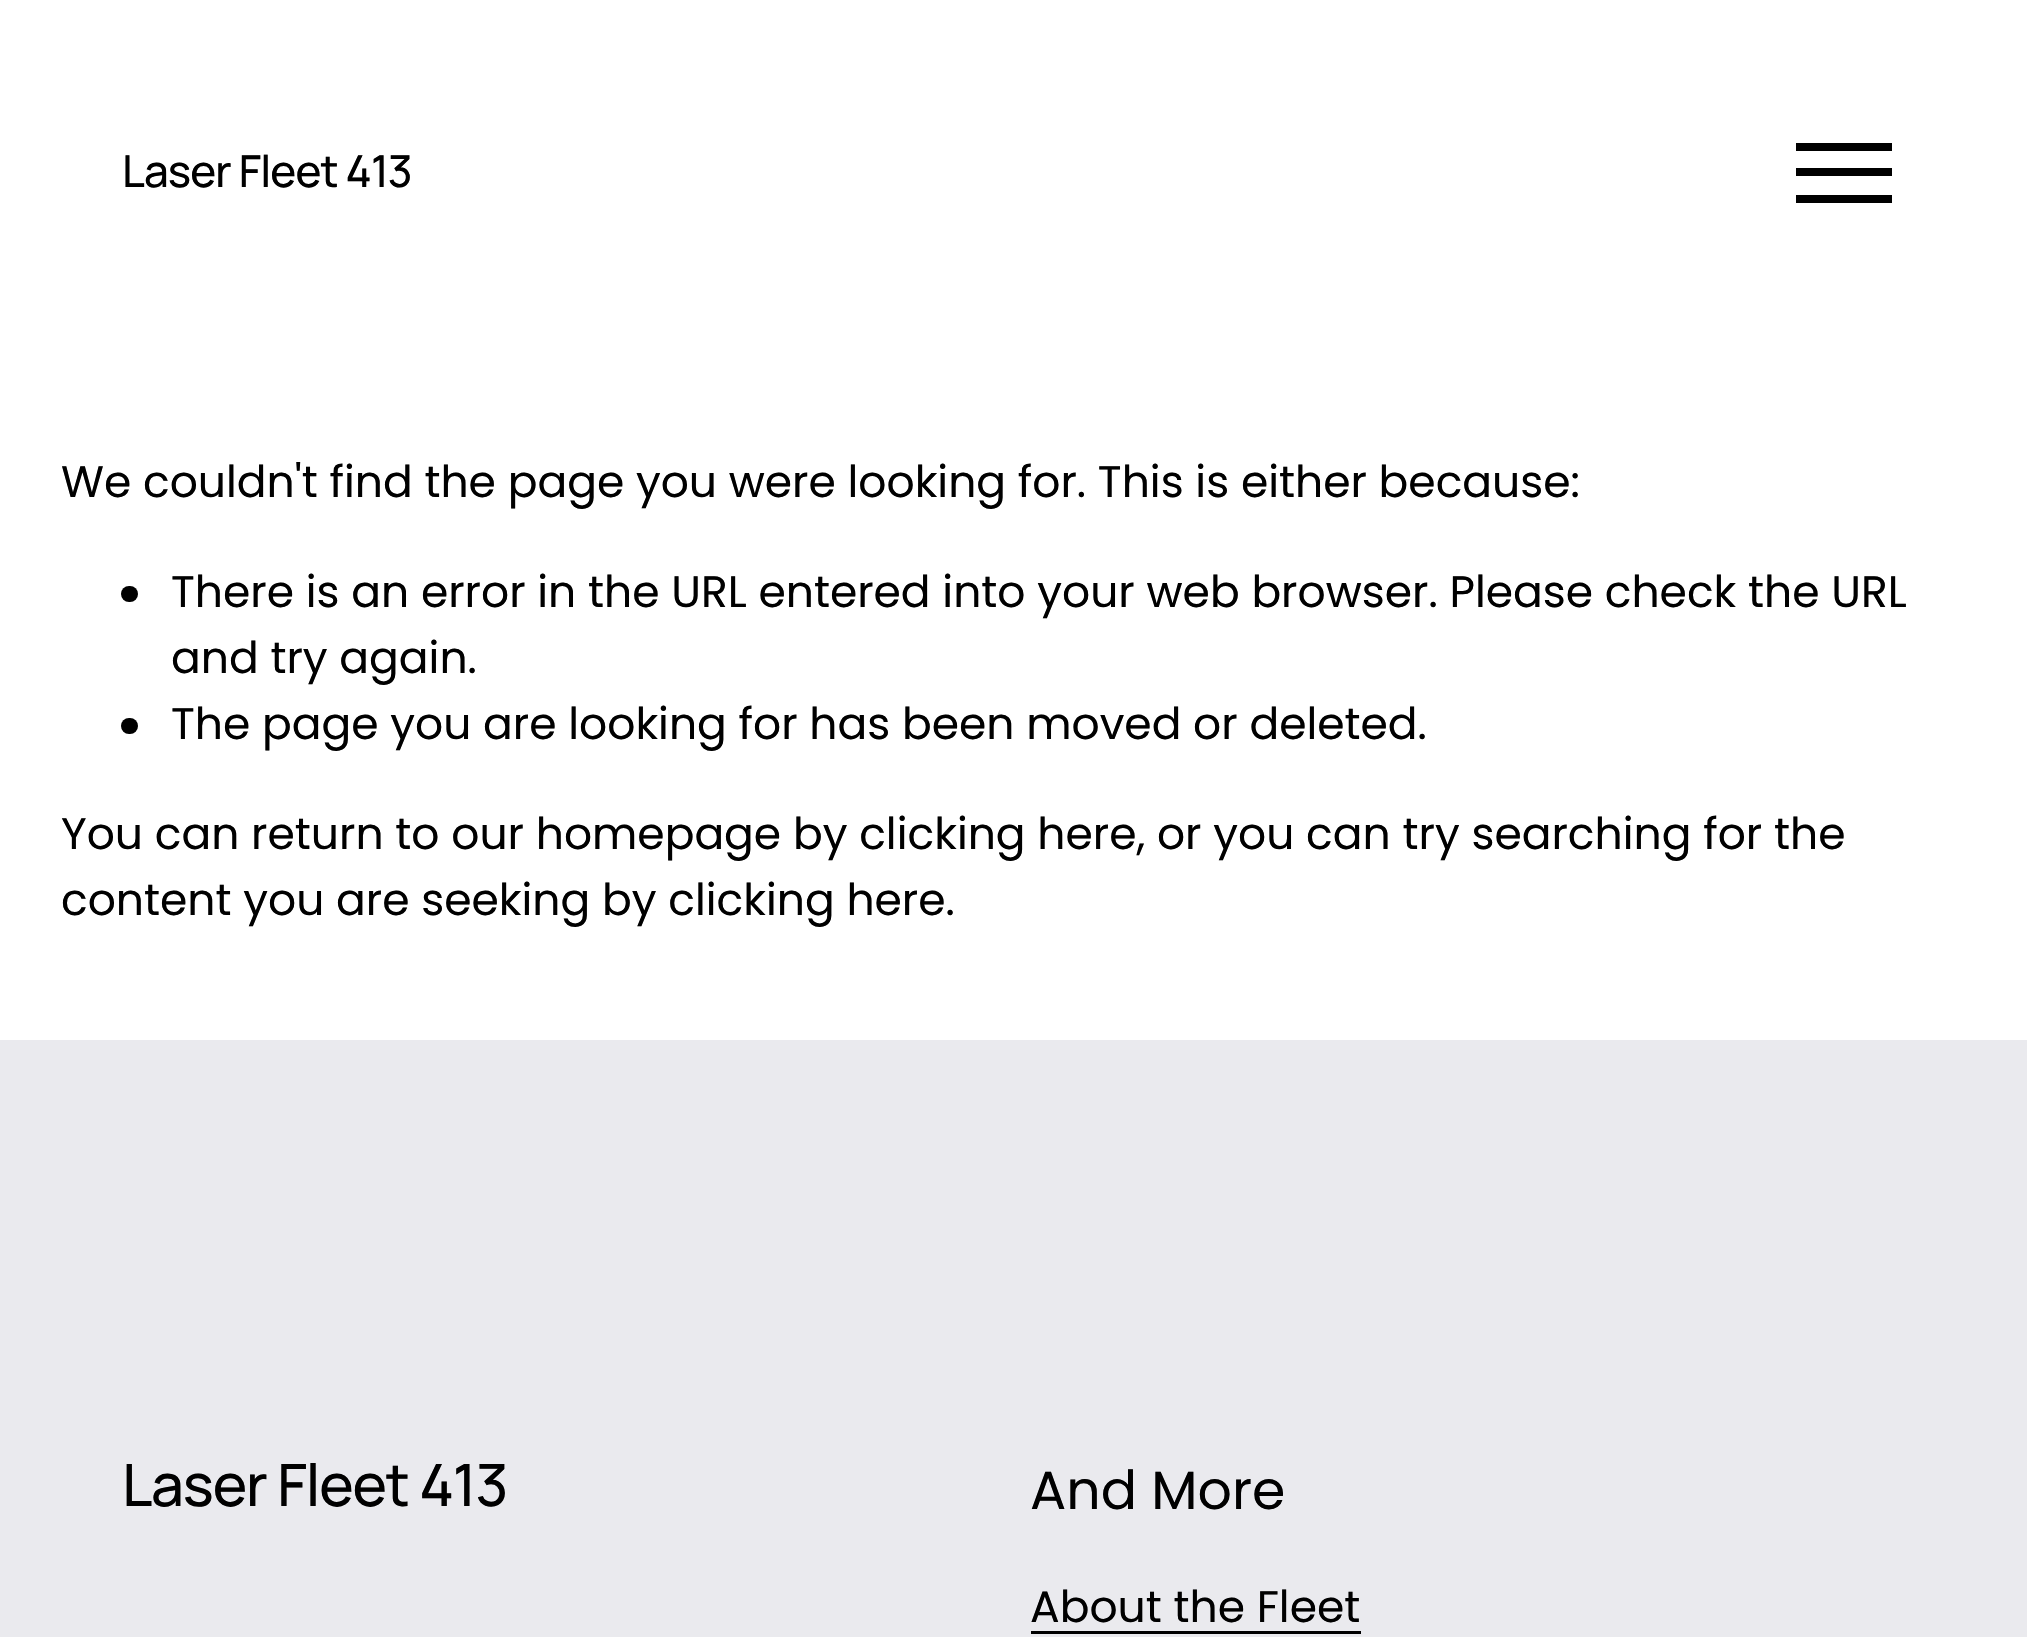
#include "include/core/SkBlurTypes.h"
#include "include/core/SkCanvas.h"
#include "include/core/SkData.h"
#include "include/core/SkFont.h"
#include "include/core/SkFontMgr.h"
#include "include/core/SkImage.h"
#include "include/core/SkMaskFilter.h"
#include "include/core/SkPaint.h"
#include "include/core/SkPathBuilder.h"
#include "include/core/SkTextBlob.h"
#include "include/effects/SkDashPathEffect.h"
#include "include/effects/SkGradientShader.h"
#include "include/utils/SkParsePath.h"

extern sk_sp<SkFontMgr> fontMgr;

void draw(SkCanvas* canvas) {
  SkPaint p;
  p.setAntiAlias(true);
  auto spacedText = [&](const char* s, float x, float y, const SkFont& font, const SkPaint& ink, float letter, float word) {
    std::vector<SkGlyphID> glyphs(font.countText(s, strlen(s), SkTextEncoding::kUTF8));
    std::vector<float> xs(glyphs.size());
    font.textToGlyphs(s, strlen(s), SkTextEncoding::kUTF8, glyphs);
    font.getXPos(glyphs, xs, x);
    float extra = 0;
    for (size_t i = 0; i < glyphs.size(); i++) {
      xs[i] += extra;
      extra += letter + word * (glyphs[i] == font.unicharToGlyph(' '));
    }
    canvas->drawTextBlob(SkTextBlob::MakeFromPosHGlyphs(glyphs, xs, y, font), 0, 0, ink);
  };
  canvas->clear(SK_ColorWHITE);
  p.setColor(SK_ColorBLACK);
  canvas->drawRect(SkRect::MakeLTRB(1796, 143, 1892, 151), p);
  canvas->drawRect(SkRect::MakeLTRB(1796, 168, 1892, 176), p);
  canvas->drawRect(SkRect::MakeLTRB(1796, 195, 1892, 203), p);
  canvas->drawRoundRect(SkRect::MakeLTRB(121, 586, 138, 602), 8, 8, p);
  canvas->drawRoundRect(SkRect::MakeLTRB(121, 718, 138, 734), 8, 8, p);
  p.setColor(SkColorSetRGB(234, 234, 238));
  canvas->drawRect(SkRect::MakeLTRB(0, 1040, 2027, 1637), p);
  p.setColor(SK_ColorBLACK);
  canvas->drawRect(SkRect::MakeLTRB(1031, 1631, 1361, 1634), p);
  SkFont font1(fontMgr->matchFamilyStyle("Manrope", SkFontStyle(500, SkFontStyle::kNormal_Width, SkFontStyle::kUpright_Slant)), 44);
  font1.setSubpixel(true);
  spacedText("Laser Fleet 413", 122, 187, font1, p, -0.9f, 0);
  SkFont font2(fontMgr->matchFamilyStyle("Poppins", SkFontStyle::Normal()), 44);
  font2.setSubpixel(true);
  canvas->drawString("We couldn't find the page you were looking for. This is either because:", 61, 497, font2, p);
  canvas->drawString("There is an error in the URL entered into your web browser. Please check the URL", 171, 607, font2, p);
  canvas->drawString("and try again.", 171, 673, font2, p);
  canvas->drawString("The page you are looking for has been moved or deleted.", 171, 739, font2, p);
  canvas->drawString("You can return to our homepage by clicking here, or you can try searching for the", 61, 849, font2, p);
  canvas->drawString("content you are seeking by clicking here.", 61, 915, font2, p);
  SkFont font3(fontMgr->matchFamilyStyle("Manrope", SkFontStyle(500, SkFontStyle::kNormal_Width, SkFontStyle::kUpright_Slant)), 58.5f);
  font3.setSubpixel(true);
  spacedText("Laser Fleet 413", 122, 1506, font3, p, -1.2f, 0);
  SkFont font4(fontMgr->matchFamilyStyle("Poppins", SkFontStyle::Normal()), 53.75f);
  font4.setSubpixel(true);
  canvas->drawString("And More", 1030, 1509, font4, p);
  canvas->drawString("About the Fleet", 1030, 1622, font2, p);
}
